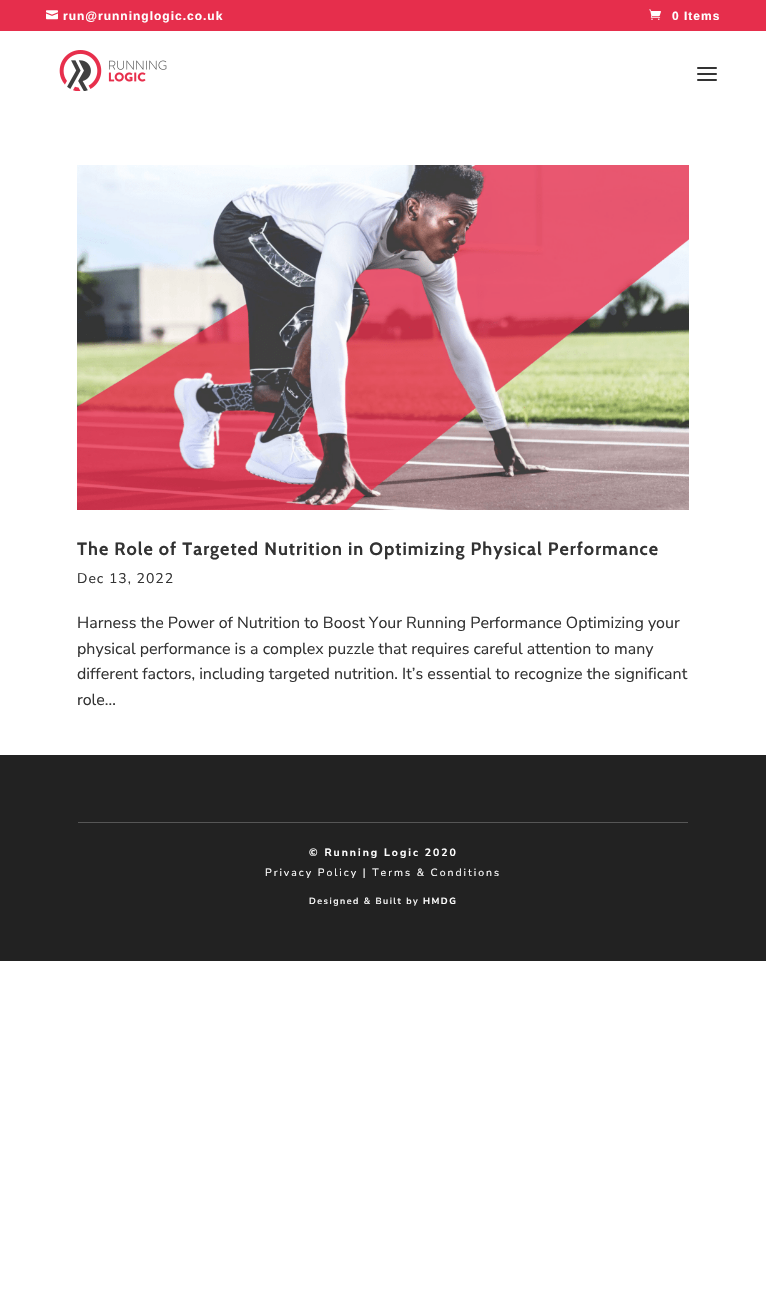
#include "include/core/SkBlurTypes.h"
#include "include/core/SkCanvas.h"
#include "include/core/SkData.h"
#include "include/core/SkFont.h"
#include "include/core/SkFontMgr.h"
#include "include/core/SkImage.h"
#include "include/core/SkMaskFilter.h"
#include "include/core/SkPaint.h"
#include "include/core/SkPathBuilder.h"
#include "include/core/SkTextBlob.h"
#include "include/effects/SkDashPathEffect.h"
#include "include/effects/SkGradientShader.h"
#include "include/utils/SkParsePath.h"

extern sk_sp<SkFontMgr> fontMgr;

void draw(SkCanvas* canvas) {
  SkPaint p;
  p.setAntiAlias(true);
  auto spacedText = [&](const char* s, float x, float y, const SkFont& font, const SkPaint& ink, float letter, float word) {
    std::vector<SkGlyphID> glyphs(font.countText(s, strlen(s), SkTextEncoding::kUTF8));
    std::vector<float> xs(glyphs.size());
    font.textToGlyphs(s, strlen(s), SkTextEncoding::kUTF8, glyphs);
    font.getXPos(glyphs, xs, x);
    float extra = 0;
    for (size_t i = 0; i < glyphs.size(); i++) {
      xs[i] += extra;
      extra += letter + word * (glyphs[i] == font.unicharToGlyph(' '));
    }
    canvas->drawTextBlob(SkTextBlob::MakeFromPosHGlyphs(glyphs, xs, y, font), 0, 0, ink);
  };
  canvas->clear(SK_ColorWHITE);
  p.setColor(SkColorSetRGB(230, 46, 76));
  canvas->drawRect(SkRect::MakeLTRB(0, 0, 766, 31), p);
  canvas->drawImageRect(SkImages::DeferredFromEncodedData(SkData::MakeFromFileName("images/1.png")), SkRect::MakeLTRB(46, 10, 58, 20), SkSamplingOptions());
  canvas->drawImageRect(SkImages::DeferredFromEncodedData(SkData::MakeFromFileName("images/2.png")), SkRect::MakeLTRB(649, 9, 661, 20), SkSamplingOptions());
  canvas->drawImageRect(SkImages::DeferredFromEncodedData(SkData::MakeFromFileName("images/3.png")), SkRect::MakeLTRB(59, 50, 167, 91), SkSamplingOptions());
  canvas->drawImageRect(SkImages::DeferredFromEncodedData(SkData::MakeFromFileName("images/4.png")), SkRect::MakeLTRB(697, 67, 717, 81), SkSamplingOptions());
  canvas->drawImageRect(SkImages::DeferredFromEncodedData(SkData::MakeFromFileName("images/5.png")), SkRect::MakeLTRB(77, 165, 689, 510), SkSamplingOptions());
  p.setColor(SkColorSetRGB(34, 34, 34));
  canvas->drawRect(SkRect::MakeLTRB(0, 755, 766, 961), p);
  p.setColor(SkColorSetRGB(86, 86, 86));
  canvas->drawRect(SkRect::MakeLTRB(78, 822, 688, 823), p);
  SkFont font1(fontMgr->matchFamilyStyle("Liberation Sans", SkFontStyle::Bold()), 12);
  font1.setSubpixel(true);
  p.setColor(SK_ColorWHITE);
  spacedText("run@runninglogic.co.uk", 63, 20, font1, p, 1, 0);
  spacedText("0 Items", 672, 20, font1, p, 1, 0);
  SkFont font2(fontMgr->matchFamilyStyle("Cabin", SkFontStyle::Bold()), 18);
  font2.setSubpixel(true);
  p.setColor(SkColorSetRGB(51, 51, 51));
  spacedText("The Role of Targeted Nutrition in Optimizing Physical Performance", 77, 555, font2, p, 1, 0);
  SkFont font3(fontMgr->matchFamilyStyle("Nunito Sans", SkFontStyle::Normal()), 14);
  font3.setSubpixel(true);
  spacedText("Dec 13, 2022", 77, 583, font3, p, 1, 0);
  SkFont font4(fontMgr->matchFamilyStyle("Nunito Sans", SkFontStyle::Normal()), 16);
  font4.setSubpixel(true);
  canvas->drawString("Harness the Power of Nutrition to Boost Your Running Performance Optimizing your", 77, 628, font4, p);
  canvas->drawString("physical performance is a complex puzzle that requires careful attention to many", 77, 654, font4, p);
  canvas->drawString("different factors, including targeted nutrition. It’s essential to recognize the significant", 77, 679, font4, p);
  canvas->drawString("role...", 77, 705, font4, p);
  SkFont font5(fontMgr->matchFamilyStyle("Nunito Sans", SkFontStyle::Bold()), 10.5f);
  font5.setSubpixel(true);
  p.setColor(SK_ColorWHITE);
  spacedText("© Running Logic 2020", 309, 856, font5, p, 2, 0);
  SkFont font6(fontMgr->matchFamilyStyle("Nunito Sans", SkFontStyle::Normal()), 10.5f);
  font6.setSubpixel(true);
  spacedText("Privacy Policy | Terms & Conditions", 265, 876, font6, p, 2, 0);
  SkFont font7(fontMgr->matchFamilyStyle("Nunito Sans", SkFontStyle(600, SkFontStyle::kNormal_Width, SkFontStyle::kUpright_Slant)), 9);
  font7.setSubpixel(true);
  spacedText("Designed & Built by", 309, 904, font7, p, 1.5f, 0);
  SkFont font8(fontMgr->matchFamilyStyle("Nunito Sans", SkFontStyle::Bold()), 9);
  font8.setSubpixel(true);
  spacedText("HMDG", 423, 904, font8, p, 1.5f, 0);
}
